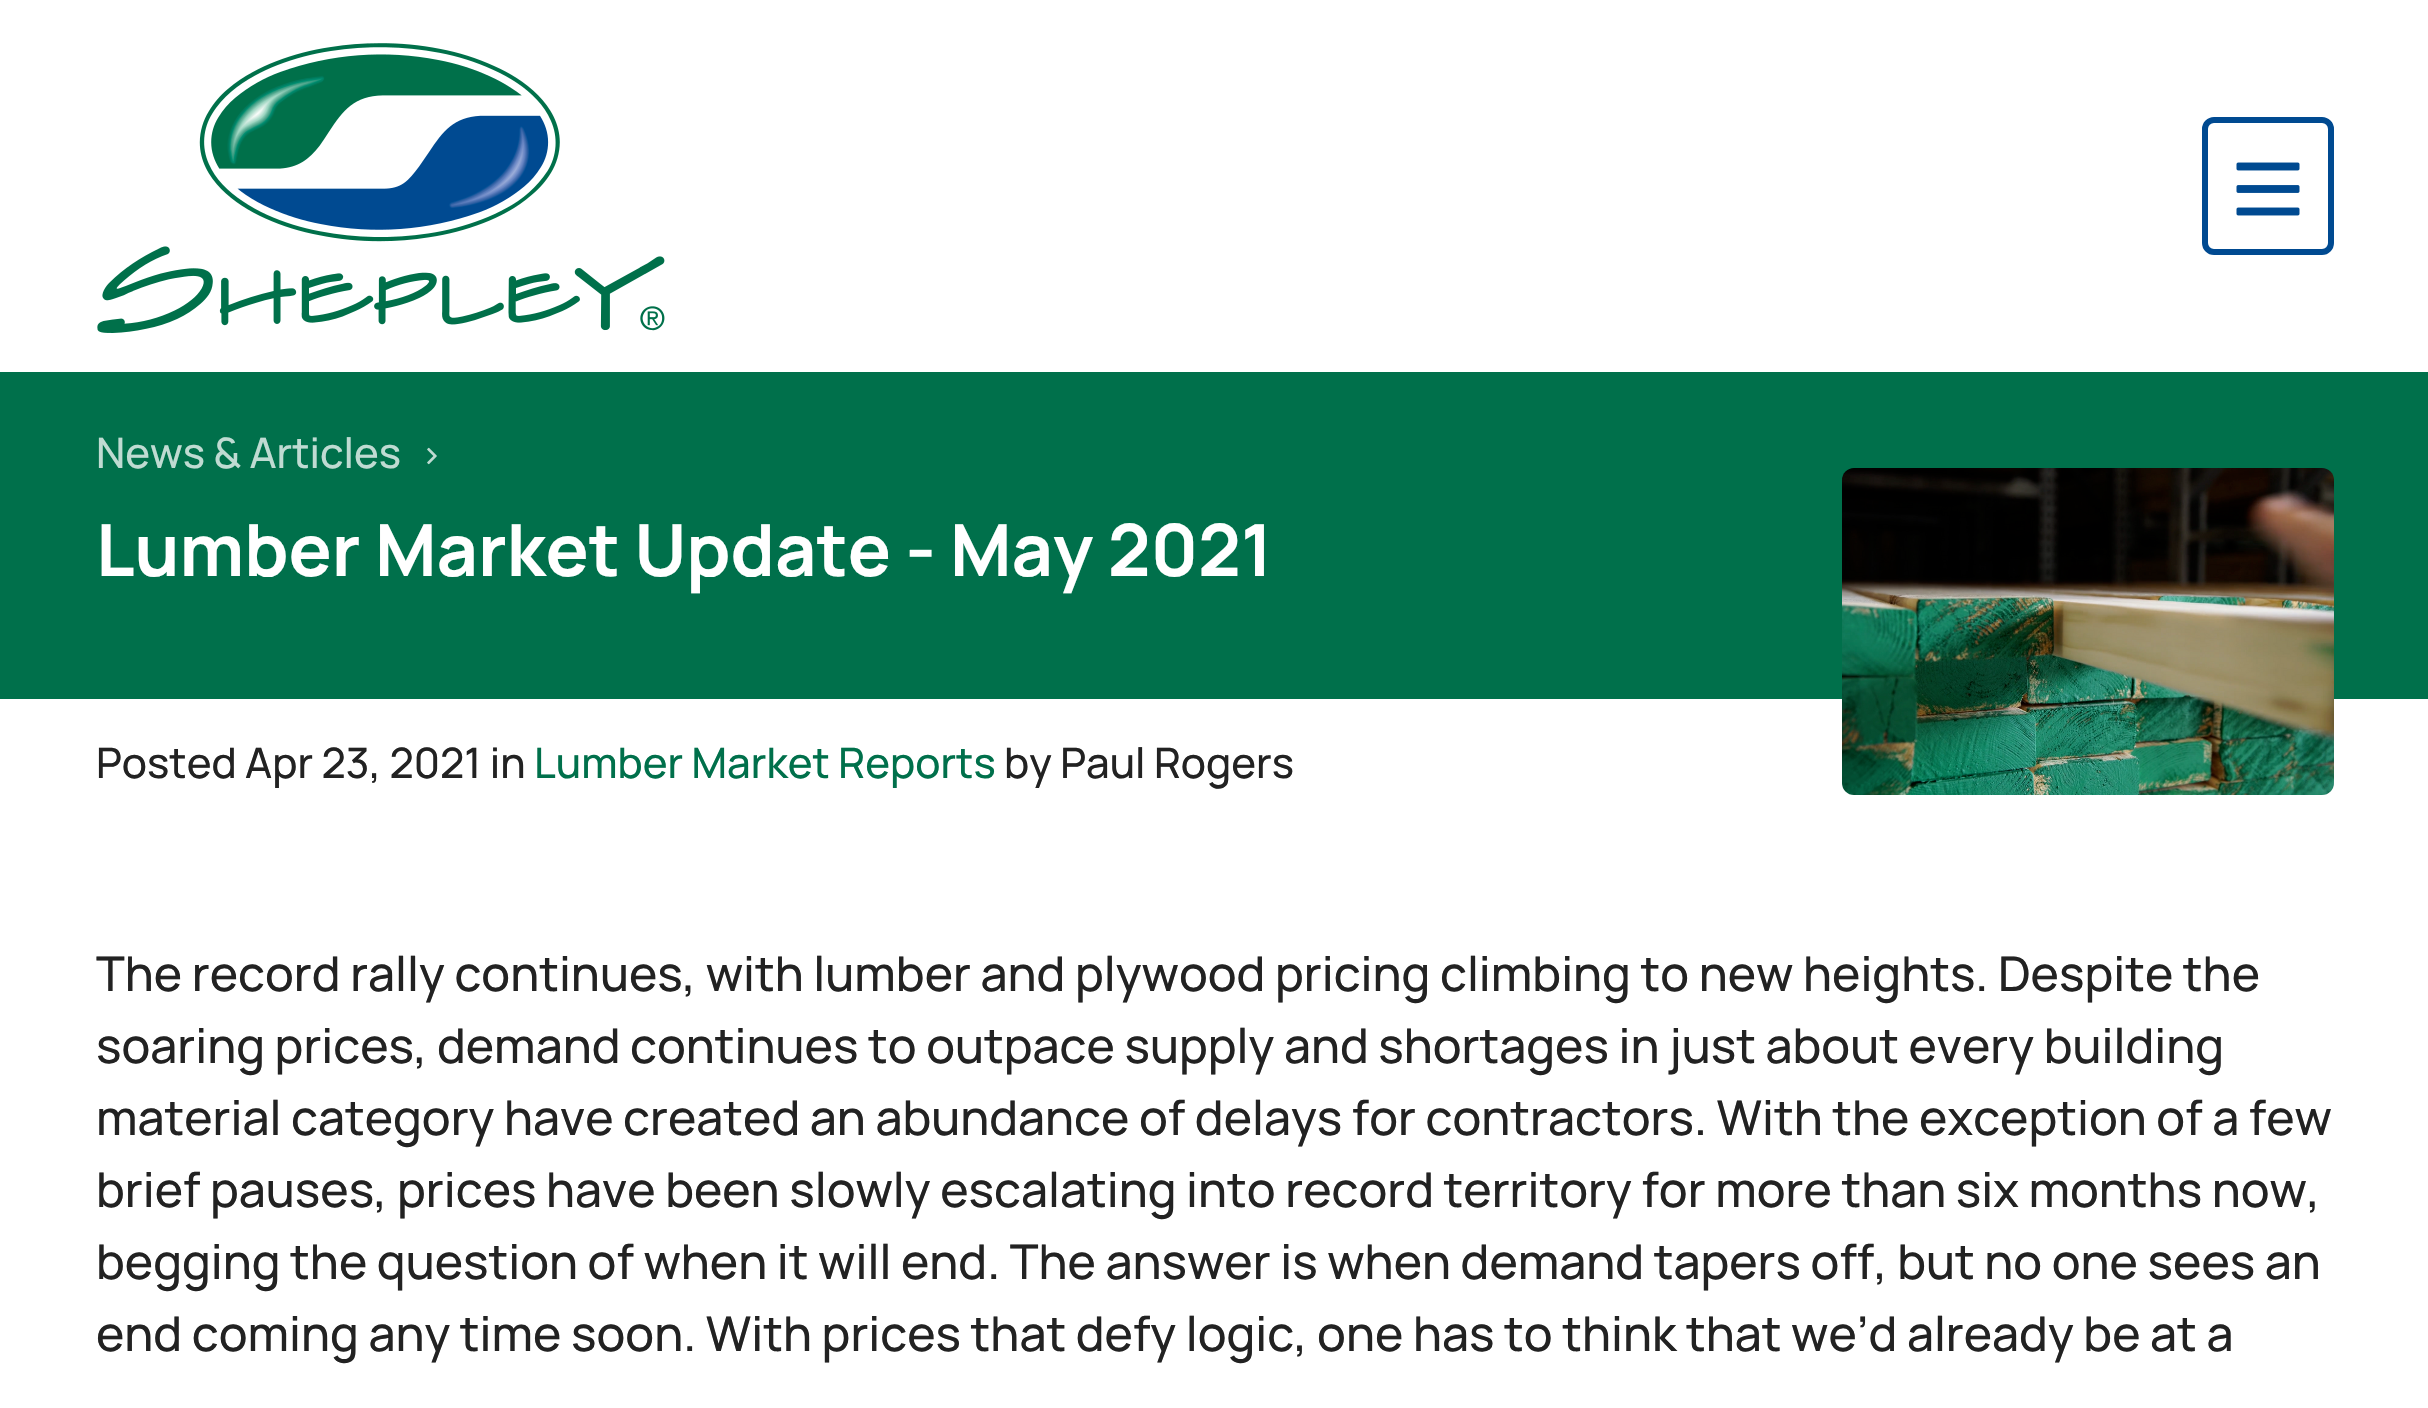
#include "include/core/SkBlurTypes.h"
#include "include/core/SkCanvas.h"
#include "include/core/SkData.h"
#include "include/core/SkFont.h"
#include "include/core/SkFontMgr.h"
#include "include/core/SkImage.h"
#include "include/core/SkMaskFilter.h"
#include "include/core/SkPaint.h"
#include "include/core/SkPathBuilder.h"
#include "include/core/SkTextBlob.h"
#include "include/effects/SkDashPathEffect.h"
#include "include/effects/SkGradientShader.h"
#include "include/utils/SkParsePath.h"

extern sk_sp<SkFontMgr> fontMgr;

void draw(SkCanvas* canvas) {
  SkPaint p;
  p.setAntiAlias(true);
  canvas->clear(SK_ColorWHITE);
  canvas->drawImageRect(SkImages::DeferredFromEncodedData(SkData::MakeFromFileName("images/1.png")), SkRect::MakeLTRB(97, 43, 665, 333), SkSamplingOptions());
  p.setStyle(SkPaint::kStroke_Style);
  p.setStrokeWidth(6);
  p.setColor(SkColorSetRGB(0, 74, 145));
  canvas->drawRoundRect(SkRect::MakeLTRB(2205, 120, 2331, 252), 9, 9, p);
  canvas->drawImageRect(SkImages::DeferredFromEncodedData(SkData::MakeFromFileName("images/2.png")), SkRect::MakeLTRB(2236, 162, 2300, 216), SkSamplingOptions());
  p.setStyle(SkPaint::kFill_Style);
  p.setColor(SkColorSetRGB(0, 112, 75));
  canvas->drawRect(SkRect::MakeLTRB(0, 372, 2428, 699), p);
  canvas->drawImageRect(SkImages::DeferredFromEncodedData(SkData::MakeFromFileName("images/3.png")), SkRect::MakeLTRB(427, 447, 437, 465), SkSamplingOptions());
  canvas->drawImageRect(SkImages::DeferredFromEncodedData(SkData::MakeFromFileName("images/4.png")), SkRect::MakeLTRB(1842, 468, 2334, 795), SkSamplingOptions());
  SkFont font1(fontMgr->matchFamilyStyle("Manrope", SkFontStyle(500, SkFontStyle::kNormal_Width, SkFontStyle::kUpright_Slant)), 42);
  font1.setSubpixel(true);
  p.setColor(SkColorSetRGB(191, 219, 210));
  canvas->drawString("News & Articles", 96, 468, font1, p);
  SkFont font2(fontMgr->matchFamilyStyle("Manrope", SkFontStyle::Bold()), 72);
  font2.setSubpixel(true);
  p.setColor(SK_ColorWHITE);
  canvas->drawString("Lumber Market Update - May 2021", 96, 576, font2, p);
  p.setColor(SkColorSetRGB(34, 34, 34));
  canvas->drawString("Posted Apr 23, 2021 in", 96, 778, font1, p);
  p.setColor(SkColorSetRGB(0, 112, 75));
  canvas->drawString("Lumber Market Reports", 534, 778, font1, p);
  p.setColor(SkColorSetRGB(34, 34, 34));
  canvas->drawString("by Paul Rogers", 1004, 778, font1, p);
  SkFont font3(fontMgr->matchFamilyStyle("Manrope", SkFontStyle(500, SkFontStyle::kNormal_Width, SkFontStyle::kUpright_Slant)), 48);
  font3.setSubpixel(true);
  canvas->drawString("The record rally continues, with lumber and plywood pricing climbing to new heights. Despite the", 96, 991, font3, p);
  canvas->drawString("soaring prices, demand continues to outpace supply and shortages in just about every building", 96, 1063, font3, p);
  canvas->drawString("material category have created an abundance of delays for contractors. With the exception of a few", 96, 1135, font3, p);
  canvas->drawString("brief pauses, prices have been slowly escalating into record territory for more than six months now,", 96, 1207, font3, p);
  canvas->drawString("begging the question of when it will end. The answer is when demand tapers off, but no one sees an", 96, 1279, font3, p);
  canvas->drawString("end coming any time soon. With prices that defy logic, one has to think that we’d already be at a", 96, 1351, font3, p);
}
